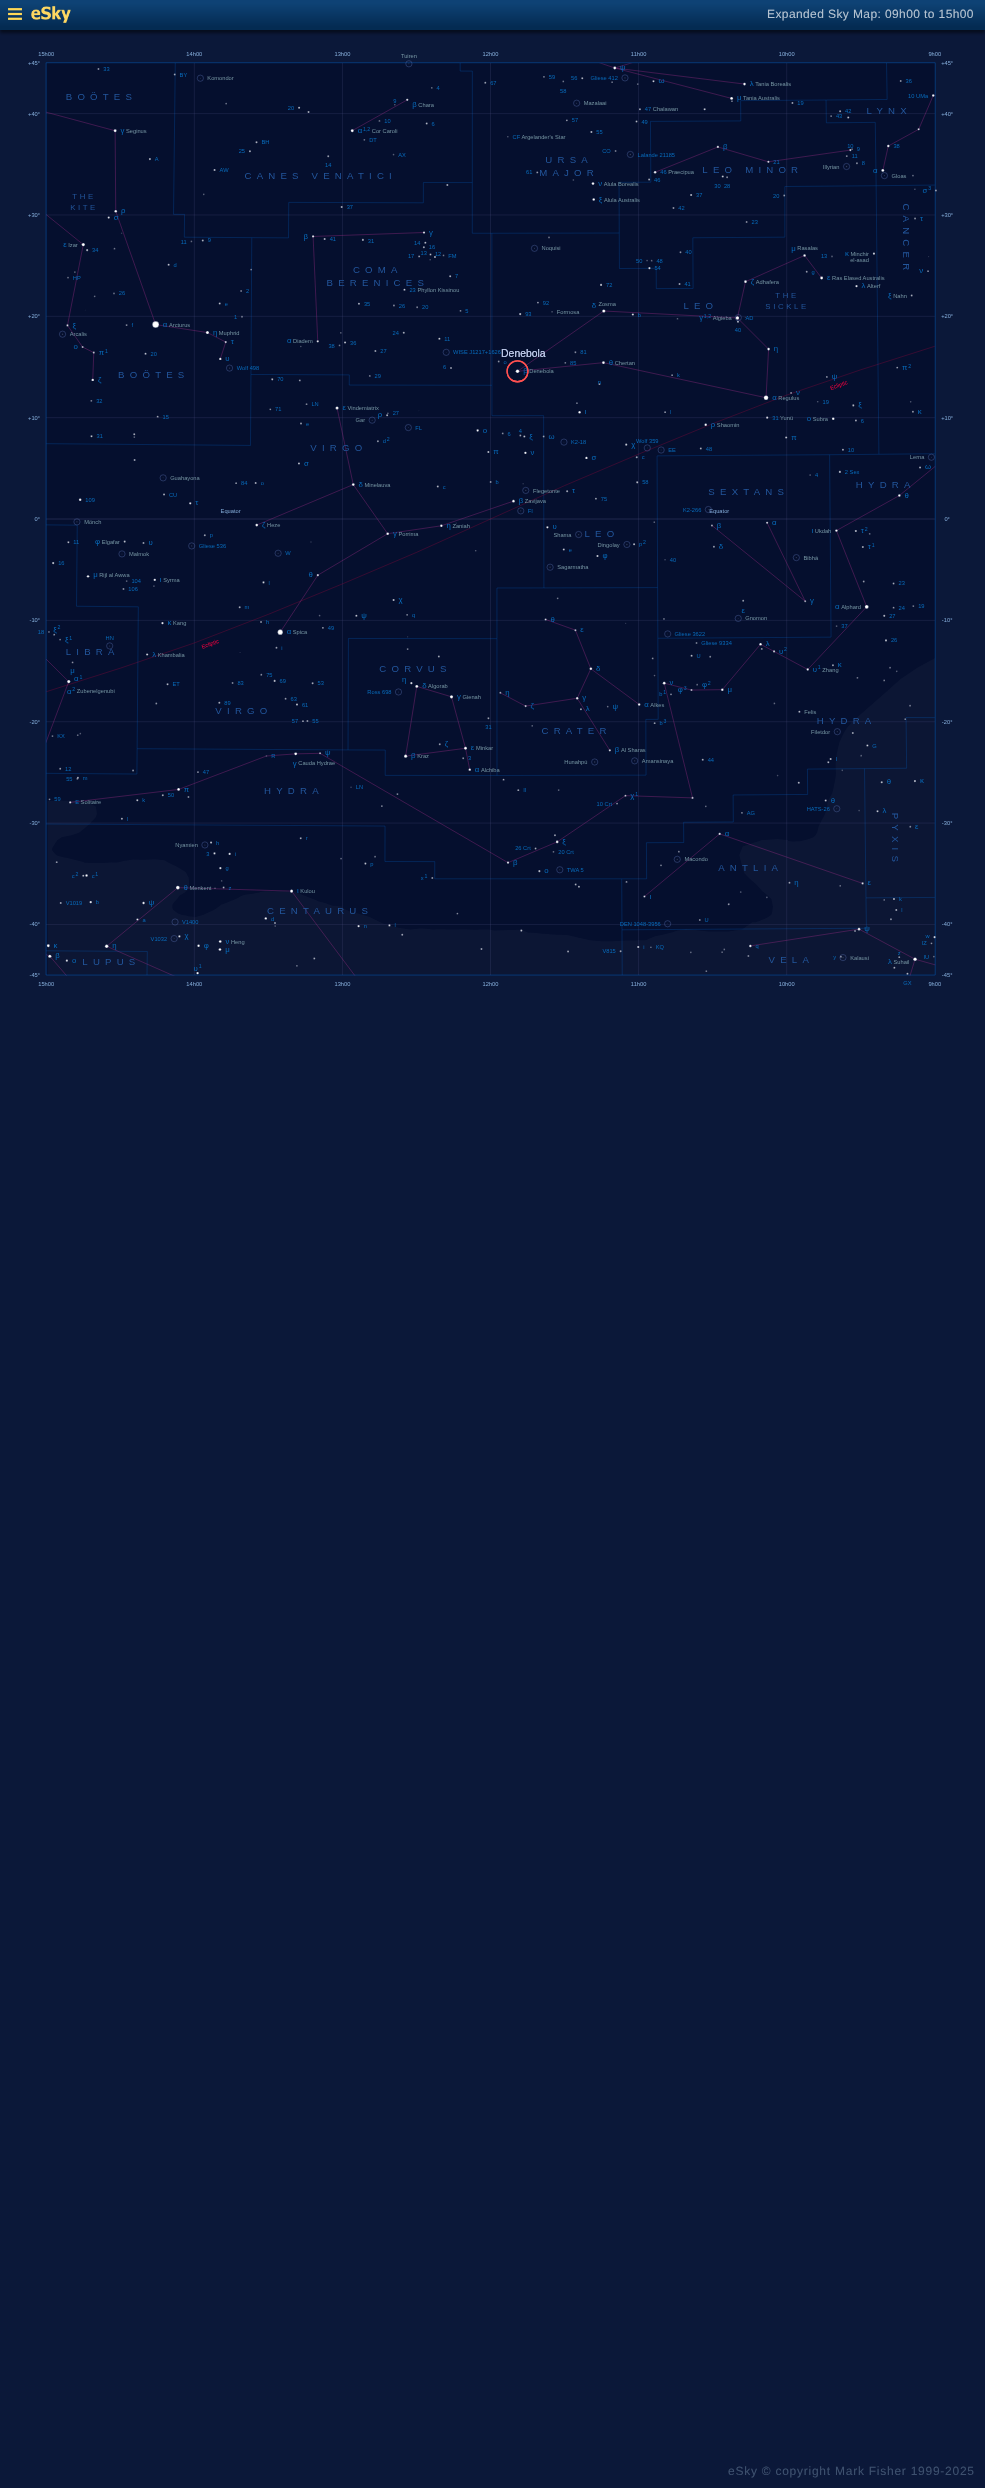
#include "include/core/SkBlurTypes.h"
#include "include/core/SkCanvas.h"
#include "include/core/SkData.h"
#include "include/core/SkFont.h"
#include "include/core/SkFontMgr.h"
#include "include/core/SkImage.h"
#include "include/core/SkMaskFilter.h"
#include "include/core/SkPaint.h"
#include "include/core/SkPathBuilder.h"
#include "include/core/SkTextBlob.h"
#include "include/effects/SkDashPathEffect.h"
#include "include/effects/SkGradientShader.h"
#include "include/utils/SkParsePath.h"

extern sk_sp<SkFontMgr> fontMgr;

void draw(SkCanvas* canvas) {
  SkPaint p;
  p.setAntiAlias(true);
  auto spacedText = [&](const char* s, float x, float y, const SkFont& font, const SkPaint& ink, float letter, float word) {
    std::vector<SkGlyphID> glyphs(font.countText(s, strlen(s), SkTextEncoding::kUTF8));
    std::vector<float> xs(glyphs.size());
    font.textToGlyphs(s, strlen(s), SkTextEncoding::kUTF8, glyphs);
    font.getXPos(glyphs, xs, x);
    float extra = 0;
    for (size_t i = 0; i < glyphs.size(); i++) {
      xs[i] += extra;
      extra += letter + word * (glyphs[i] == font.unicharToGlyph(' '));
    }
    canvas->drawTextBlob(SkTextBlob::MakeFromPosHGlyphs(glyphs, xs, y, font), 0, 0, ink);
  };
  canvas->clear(SkColorSetRGB(11, 24, 57));
  p.setColor(SkColorSetARGB(128, 0, 0, 0));
  p.setMaskFilter(SkMaskFilter::MakeBlur(kNormal_SkBlurStyle, 1.5f));
  canvas->drawRect(SkRect::MakeLTRB(0, 3, 985, 33), p);
  p.setMaskFilter(nullptr);
  {
    const SkColor colors[] = {SkColorSetRGB(14, 66, 117), SkColorSetRGB(4, 43, 82)};
    const float stops[] = {0.1f, 0.9f};
    const SkPoint ends[] = {{0, 0}, {0, 30}};
    p.setShader(SkGradientShader::MakeLinear(ends, colors, stops, 2, SkTileMode::kClamp));
    p.setAlpha(255);
  }
  canvas->drawRect(SkRect::MakeLTRB(0, 0, 985, 30), p);
  canvas->drawImageRect(SkImages::DeferredFromEncodedData(SkData::MakeFromFileName("images/1.png")), SkRect::MakeLTRB(8, 8, 22, 20), SkSamplingOptions());
  canvas->drawImageRect(SkImages::DeferredFromEncodedData(SkData::MakeFromFileName("images/2.png")), SkRect::MakeLTRB(31, 6, 71, 23), SkSamplingOptions());
  canvas->drawImageRect(SkImages::DeferredFromEncodedData(SkData::MakeFromFileName("images/3.png")), SkRect::MakeLTRB(28, 52, 953, 986), SkSamplingOptions());
  SkFont font1(fontMgr->matchFamilyStyle("Liberation Sans", SkFontStyle::Normal()), 12);
  font1.setSubpixel(true);
  p.setShader(nullptr);
  p.setColor(SkColorSetRGB(181, 195, 209));
  spacedText("Expanded Sky Map: 09h00 to 15h00", 767, 18, font1, p, 0.4f, 0);
  p.setColor(SkColorSetRGB(61, 80, 110));
  spacedText("eSky © copyright Mark Fisher 1999-2025", 728, 2475, font1, p, 0.75f, 0);
}
